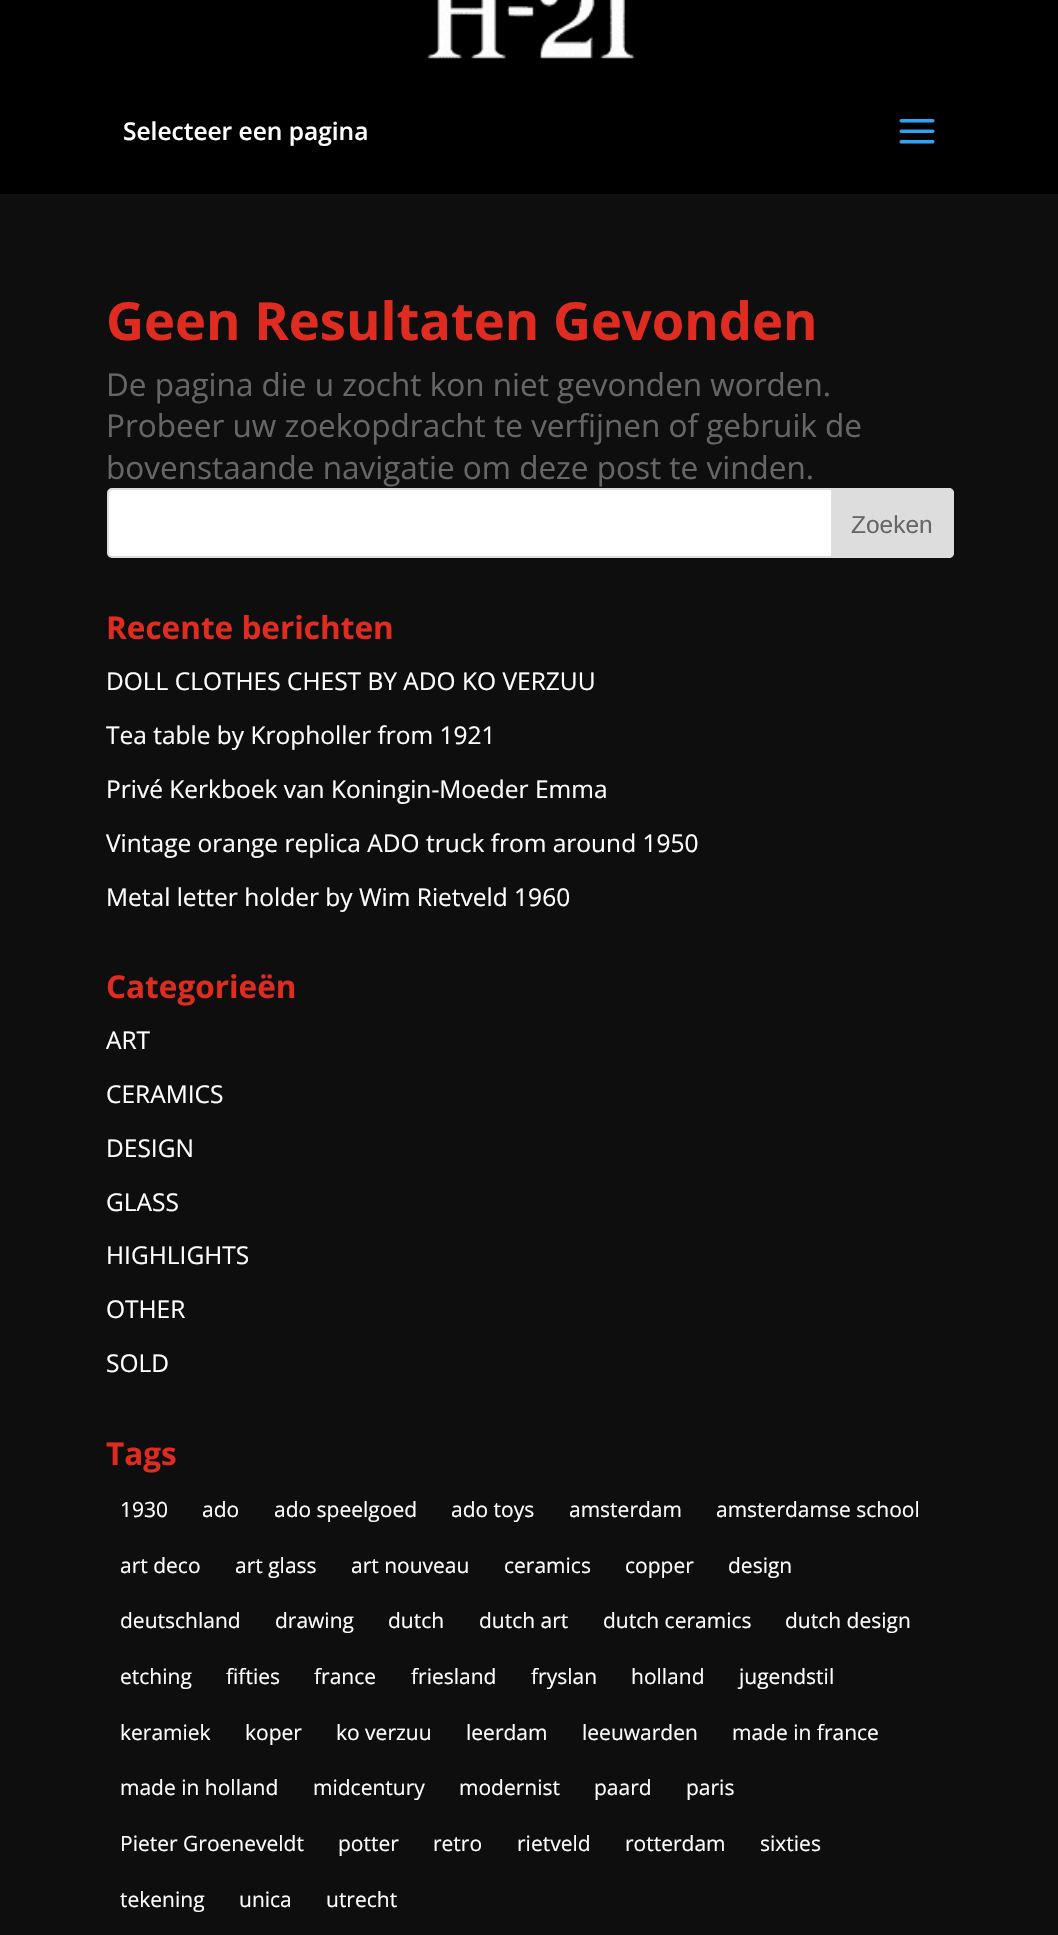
#include "include/core/SkBlurTypes.h"
#include "include/core/SkCanvas.h"
#include "include/core/SkData.h"
#include "include/core/SkFont.h"
#include "include/core/SkFontMgr.h"
#include "include/core/SkImage.h"
#include "include/core/SkMaskFilter.h"
#include "include/core/SkPaint.h"
#include "include/core/SkPathBuilder.h"
#include "include/core/SkTextBlob.h"
#include "include/effects/SkDashPathEffect.h"
#include "include/effects/SkGradientShader.h"
#include "include/utils/SkParsePath.h"

extern sk_sp<SkFontMgr> fontMgr;

void draw(SkCanvas* canvas) {
  SkPaint p;
  p.setAntiAlias(true);
  canvas->clear(SkColorSetRGB(14, 14, 14));
  p.setColor(SK_ColorBLACK);
  canvas->drawRect(SkRect::MakeLTRB(0, 0, 1058, 194), p);
  canvas->drawImageRect(SkImages::DeferredFromEncodedData(SkData::MakeFromFileName("images/1.png")), SkRect::MakeLTRB(427, 0, 635, 59), SkSamplingOptions());
  canvas->drawImageRect(SkImages::DeferredFromEncodedData(SkData::MakeFromFileName("images/2.png")), SkRect::MakeLTRB(899, 119, 935, 144), SkSamplingOptions());
  p.setColor(SK_ColorWHITE);
  canvas->drawRoundRect(SkRect::MakeLTRB(108, 489, 953, 557), 4, 4, p);
  p.setStyle(SkPaint::kStroke_Style);
  p.setStrokeWidth(2);
  p.setColor(SkColorSetRGB(221, 221, 221));
  canvas->drawRoundRect(SkRect::MakeLTRB(108, 489, 953, 557), 4, 4, p);
  p.setStyle(SkPaint::kFill_Style);
  canvas->drawPath(SkPathBuilder().moveTo(832, 489).lineTo(949, 489).cubicTo(951, 489, 953, 491, 953, 493).lineTo(953, 553).cubicTo(953, 555, 951, 557, 949, 557).lineTo(832, 557).close().detach(), p);
  p.setStyle(SkPaint::kStroke_Style);
  canvas->drawPath(SkPathBuilder().moveTo(832, 489).lineTo(949, 489).cubicTo(951, 489, 953, 491, 953, 493).lineTo(953, 553).cubicTo(953, 555, 951, 557, 949, 557).lineTo(832, 557).close().detach(), p);
  SkFont font1(fontMgr->matchFamilyStyle("Open Sans", SkFontStyle(600, SkFontStyle::kNormal_Width, SkFontStyle::kUpright_Slant)), 24.5f);
  font1.setSubpixel(true);
  p.setStyle(SkPaint::kFill_Style);
  p.setColor(SK_ColorWHITE);
  canvas->drawString("Selecteer een pagina", 123, 140, font1, p);
  SkFont font2(fontMgr->matchFamilyStyle("Open Sans", SkFontStyle::Bold()), 52.5f);
  font2.setSubpixel(true);
  p.setColor(SkColorSetRGB(224, 43, 32));
  canvas->drawString("Geen Resultaten Gevonden", 106, 340, font2, p);
  SkFont font3(fontMgr->matchFamilyStyle("Open Sans", SkFontStyle::Normal()), 31.5f);
  font3.setSubpixel(true);
  p.setColor(SkColorSetRGB(102, 102, 102));
  canvas->drawString("De pagina die u zocht kon niet gevonden worden.", 106, 396, font3, p);
  canvas->drawString("Probeer uw zoekopdracht te verfijnen of gebruik de", 106, 437, font3, p);
  canvas->drawString("bovenstaande navigatie om deze post te vinden.", 106, 479, font3, p);
  SkFont font4(fontMgr->matchFamilyStyle("Liberation Sans", SkFontStyle::Normal()), 24.5f);
  font4.setSubpixel(true);
  canvas->drawString("Zoeken", 851, 533, font4, p);
  SkFont font5(fontMgr->matchFamilyStyle("Open Sans", SkFontStyle::Bold()), 31.5f);
  font5.setSubpixel(true);
  p.setColor(SkColorSetRGB(224, 43, 32));
  canvas->drawString("Recente berichten", 106, 639, font5, p);
  SkFont font6(fontMgr->matchFamilyStyle("Open Sans", SkFontStyle::Normal()), 24.5f);
  font6.setSubpixel(true);
  p.setColor(SK_ColorWHITE);
  canvas->drawString("DOLL CLOTHES CHEST BY ADO KO VERZUU", 106, 690, font6, p);
  canvas->drawString("Tea table by Kropholler from 1921", 106, 744, font6, p);
  canvas->drawString("Privé Kerkboek van Koningin-Moeder Emma", 106, 798, font6, p);
  canvas->drawString("Vintage orange replica ADO truck from around 1950", 106, 852, font6, p);
  canvas->drawString("Metal letter holder by Wim Rietveld 1960", 106, 906, font6, p);
  p.setColor(SkColorSetRGB(224, 43, 32));
  canvas->drawString("Categorieën", 106, 998, font5, p);
  p.setColor(SK_ColorWHITE);
  canvas->drawString("ART", 106, 1049, font6, p);
  canvas->drawString("CERAMICS", 106, 1103, font6, p);
  canvas->drawString("DESIGN", 106, 1157, font6, p);
  canvas->drawString("GLASS", 106, 1211, font6, p);
  canvas->drawString("HIGHLIGHTS", 106, 1264, font6, p);
  canvas->drawString("OTHER", 106, 1318, font6, p);
  canvas->drawString("SOLD", 106, 1372, font6, p);
  p.setColor(SkColorSetRGB(224, 43, 32));
  canvas->drawString("Tags", 106, 1465, font5, p);
  SkFont font7(fontMgr->matchFamilyStyle("Open Sans", SkFontStyle::Normal()), 21);
  font7.setSubpixel(true);
  p.setColor(SK_ColorWHITE);
  canvas->drawString("1930", 120, 1517, font7, p);
  canvas->drawString("ado", 202, 1517, font7, p);
  canvas->drawString("ado speelgoed", 274, 1517, font7, p);
  canvas->drawString("ado toys", 451, 1517, font7, p);
  canvas->drawString("amsterdam", 569, 1517, font7, p);
  canvas->drawString("amsterdamse school", 716, 1517, font7, p);
  canvas->drawString("art deco", 120, 1573, font7, p);
  canvas->drawString("art glass", 235, 1573, font7, p);
  canvas->drawString("art nouveau", 351, 1573, font7, p);
  canvas->drawString("ceramics", 504, 1573, font7, p);
  canvas->drawString("copper", 625, 1573, font7, p);
  canvas->drawString("design", 728, 1573, font7, p);
  canvas->drawString("deutschland", 120, 1628, font7, p);
  canvas->drawString("drawing", 275, 1628, font7, p);
  canvas->drawString("dutch", 388, 1628, font7, p);
  canvas->drawString("dutch art", 479, 1628, font7, p);
  canvas->drawString("dutch ceramics", 603, 1628, font7, p);
  canvas->drawString("dutch design", 785, 1628, font7, p);
  canvas->drawString("etching", 120, 1684, font7, p);
  canvas->drawString("fifties", 226, 1684, font7, p);
  canvas->drawString("france", 314, 1684, font7, p);
  canvas->drawString("friesland", 411, 1684, font7, p);
  canvas->drawString("fryslan", 531, 1684, font7, p);
  canvas->drawString("holland", 631, 1684, font7, p);
  canvas->drawString("jugendstil", 739, 1684, font7, p);
  canvas->drawString("keramiek", 120, 1740, font7, p);
  canvas->drawString("koper", 245, 1740, font7, p);
  canvas->drawString("ko verzuu", 336, 1740, font7, p);
  canvas->drawString("leerdam", 466, 1740, font7, p);
  canvas->drawString("leeuwarden", 582, 1740, font7, p);
  canvas->drawString("made in france", 732, 1740, font7, p);
  canvas->drawString("made in holland", 120, 1795, font7, p);
  canvas->drawString("midcentury", 313, 1795, font7, p);
  canvas->drawString("modernist", 459, 1795, font7, p);
  canvas->drawString("paard", 594, 1795, font7, p);
  canvas->drawString("paris", 686, 1795, font7, p);
  canvas->drawString("Pieter Groeneveldt", 120, 1851, font7, p);
  canvas->drawString("potter", 338, 1851, font7, p);
  canvas->drawString("retro", 433, 1851, font7, p);
  canvas->drawString("rietveld", 517, 1851, font7, p);
  canvas->drawString("rotterdam", 625, 1851, font7, p);
  canvas->drawString("sixties", 760, 1851, font7, p);
  canvas->drawString("tekening", 120, 1907, font7, p);
  canvas->drawString("unica", 239, 1907, font7, p);
  canvas->drawString("utrecht", 326, 1907, font7, p);
}
